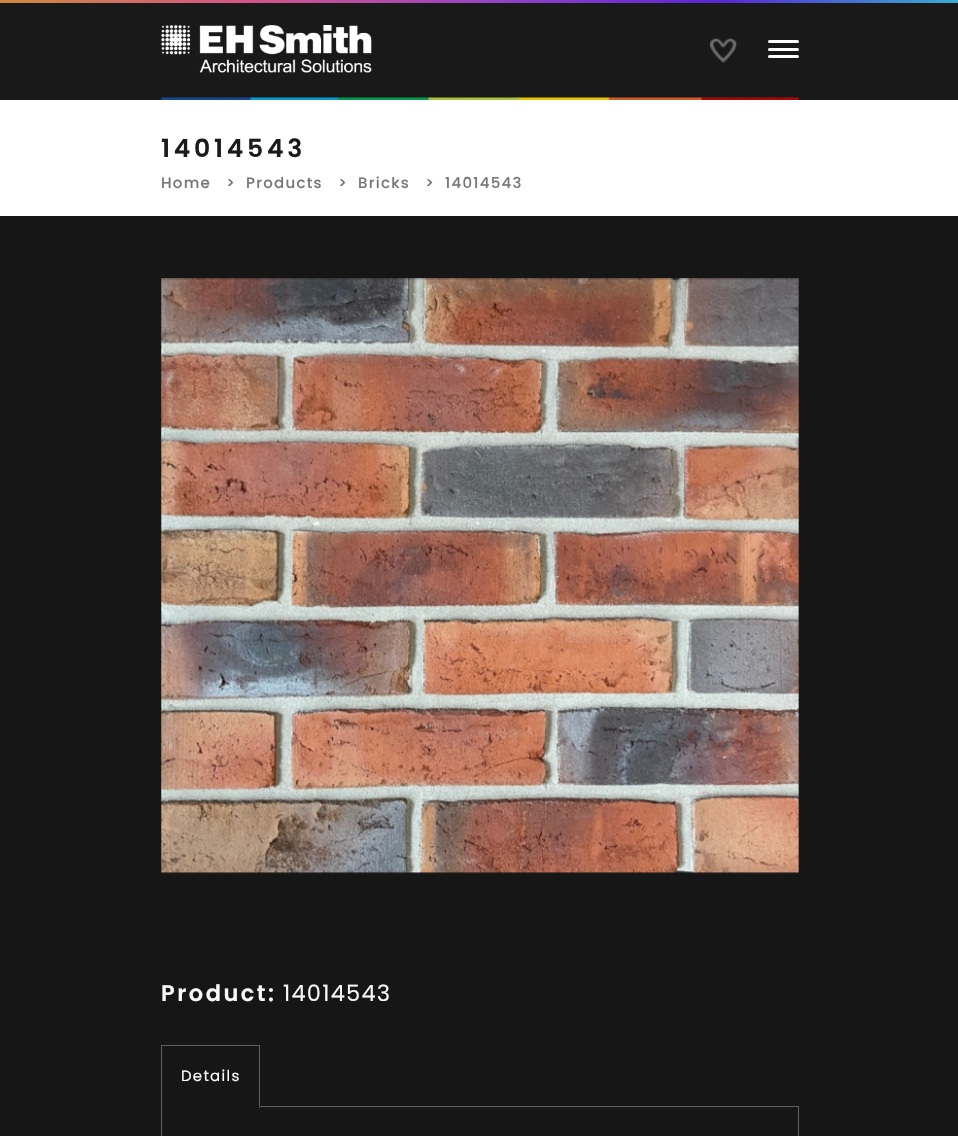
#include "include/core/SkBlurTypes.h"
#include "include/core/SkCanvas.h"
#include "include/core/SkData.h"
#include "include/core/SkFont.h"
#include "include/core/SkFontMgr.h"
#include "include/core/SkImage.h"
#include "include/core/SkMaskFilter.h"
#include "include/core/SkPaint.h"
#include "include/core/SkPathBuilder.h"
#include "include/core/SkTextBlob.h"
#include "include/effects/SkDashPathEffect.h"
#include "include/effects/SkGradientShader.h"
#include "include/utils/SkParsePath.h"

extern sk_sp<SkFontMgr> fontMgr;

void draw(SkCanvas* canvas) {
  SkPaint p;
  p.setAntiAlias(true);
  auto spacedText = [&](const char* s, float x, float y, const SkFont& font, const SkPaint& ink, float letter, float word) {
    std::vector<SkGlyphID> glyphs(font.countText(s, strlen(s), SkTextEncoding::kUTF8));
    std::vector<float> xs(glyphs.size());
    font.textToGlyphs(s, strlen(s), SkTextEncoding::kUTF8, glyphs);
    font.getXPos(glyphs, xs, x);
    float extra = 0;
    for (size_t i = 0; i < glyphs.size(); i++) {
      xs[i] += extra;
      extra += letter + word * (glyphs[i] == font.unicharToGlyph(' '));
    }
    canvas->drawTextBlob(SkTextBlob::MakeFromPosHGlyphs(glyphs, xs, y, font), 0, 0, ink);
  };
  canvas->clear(SkColorSetRGB(22, 22, 22));
  p.setColor(SkColorSetRGB(26, 25, 26));
  canvas->drawRect(SkRect::MakeLTRB(0, 3, 958, 100), p);
  {
    const SkColor colors[] = {SkColorSetRGB(204, 139, 63), SkColorSetRGB(213, 86, 133), SkColorSetRGB(155, 68, 196), SkColorSetRGB(88, 38, 213), SkColorSetRGB(56, 175, 209)};
    const float stops[] = {0, 0.25f, 0.5f, 0.75f, 1};
    const SkPoint ends[] = {{0, 1.3f}, {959, 1.2f}};
    p.setShader(SkGradientShader::MakeLinear(ends, colors, stops, 5, SkTileMode::kClamp));
    p.setAlpha(255);
  }
  canvas->drawRect(SkRect::MakeLTRB(0, 0, 958, 3), p);
  canvas->drawImageRect(SkImages::DeferredFromEncodedData(SkData::MakeFromFileName("images/1.png")), SkRect::MakeLTRB(161, 25, 372, 73), SkSamplingOptions());
  canvas->drawImageRect(SkImages::DeferredFromEncodedData(SkData::MakeFromFileName("images/2.png")), SkRect::MakeLTRB(710, 38, 737, 63), SkSamplingOptions());
  p.setShader(nullptr);
  p.setColor(SK_ColorWHITE);
  canvas->drawRoundRect(SkRect::MakeLTRB(768, 40, 799, 43), 1.5f, 1.5f, p);
  canvas->drawRoundRect(SkRect::MakeLTRB(768, 48, 799, 51), 1.5f, 1.5f, p);
  canvas->drawRoundRect(SkRect::MakeLTRB(768, 55, 799, 58), 1.5f, 1.5f, p);
  canvas->drawImageRect(SkImages::DeferredFromEncodedData(SkData::MakeFromFileName("images/3.png")), SkRect::MakeLTRB(161, 97, 799, 100), SkSamplingOptions());
  canvas->drawRect(SkRect::MakeLTRB(0, 100, 958, 216), p);
  canvas->drawImageRect(SkImages::DeferredFromEncodedData(SkData::MakeFromFileName("images/4.png")), SkRect::MakeLTRB(161, 278, 799, 874), SkSamplingOptions());
  p.setStyle(SkPaint::kStroke_Style);
  p.setStrokeWidth(1);
  p.setColor(SkColorSetRGB(96, 96, 96));
  canvas->drawRect(SkRect::MakeLTRB(161.5f, 1106.5f, 798.5f, 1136.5f), p);
  p.setStyle(SkPaint::kFill_Style);
  p.setColor(SkColorSetRGB(22, 22, 22));
  canvas->drawRect(SkRect::MakeLTRB(162, 1106, 259, 1107), p);
  p.setColor(SkColorSetRGB(96, 96, 96));
  canvas->drawRect(SkRect::MakeLTRB(161, 1045, 260, 1046), p);
  canvas->drawRect(SkRect::MakeLTRB(259, 1045, 260, 1108), p);
  p.setColor(SkColorSetRGB(22, 22, 22));
  canvas->drawRect(SkRect::MakeLTRB(161, 1106, 260, 1107), p);
  p.setColor(SkColorSetRGB(96, 96, 96));
  canvas->drawRect(SkRect::MakeLTRB(161, 1045, 162, 1108), p);
  SkFont font1(fontMgr->matchFamilyStyle("Poppins", SkFontStyle(600, SkFontStyle::kNormal_Width, SkFontStyle::kUpright_Slant)), 25);
  font1.setSubpixel(true);
  p.setColor(SkColorSetRGB(27, 27, 27));
  spacedText("14014543", 161, 157, font1, p, 3.75f, 0);
  SkFont font2(fontMgr->matchFamilyStyle("Poppins", SkFontStyle(500, SkFontStyle::kNormal_Width, SkFontStyle::kUpright_Slant)), 15);
  font2.setSubpixel(true);
  p.setColor(SkColorSetRGB(118, 118, 118));
  spacedText("Home", 161, 188, font2, p, 1.25f, 0);
  p.setColor(SkColorSetRGB(108, 117, 125));
  spacedText(">", 226, 188, font2, p, 1.25f, 0);
  p.setColor(SkColorSetRGB(118, 118, 118));
  spacedText("Products", 246, 188, font2, p, 1.25f, 0);
  p.setColor(SkColorSetRGB(108, 117, 125));
  spacedText(">", 338, 188, font2, p, 1.25f, 0);
  p.setColor(SkColorSetRGB(118, 118, 118));
  spacedText("Bricks", 358, 188, font2, p, 1.25f, 0);
  p.setColor(SkColorSetRGB(108, 117, 125));
  spacedText(">", 425, 188, font2, p, 1.25f, 0);
  p.setColor(SkColorSetRGB(118, 118, 118));
  spacedText("14014543", 445, 188, font2, p, 1.25f, 0);
  SkFont font3(fontMgr->matchFamilyStyle("Poppins", SkFontStyle(600, SkFontStyle::kNormal_Width, SkFontStyle::kUpright_Slant)), 22.5f);
  font3.setSubpixel(true);
  p.setColor(SkColorSetRGB(248, 248, 248));
  spacedText("Product:", 161, 1001, font3, p, 2.5f, 0);
  SkFont font4(fontMgr->matchFamilyStyle("Poppins", SkFontStyle::Normal()), 22.5f);
  font4.setSubpixel(true);
  spacedText("14014543", 283, 1001, font4, p, 1.25f, 0);
  SkFont font5(fontMgr->matchFamilyStyle("Poppins", SkFontStyle::Normal()), 15);
  font5.setSubpixel(true);
  p.setColor(SK_ColorWHITE);
  spacedText("Details", 181, 1081, font5, p, 1.25f, 0);
}
